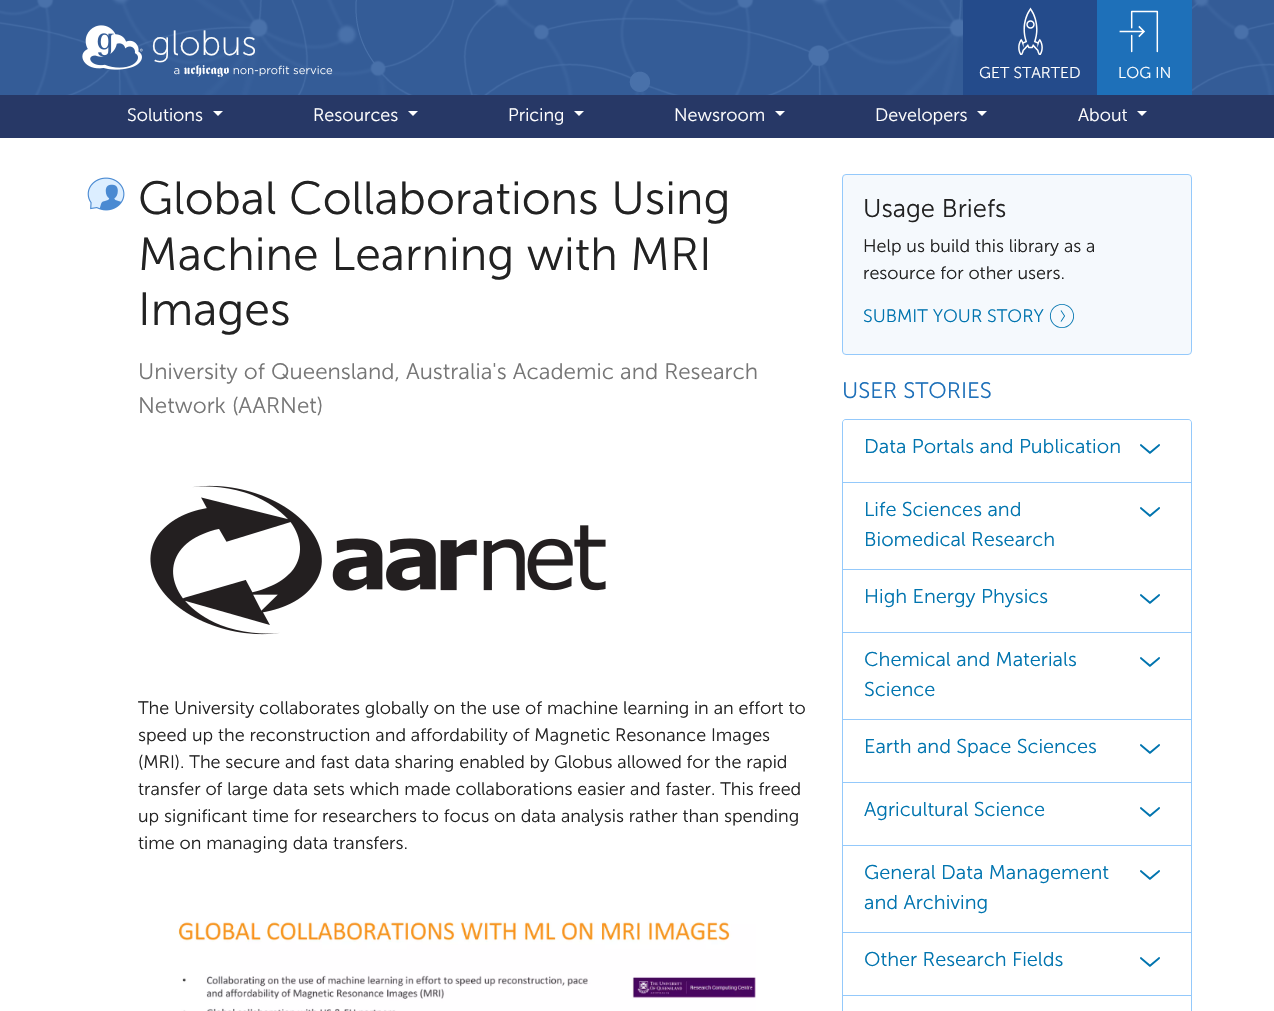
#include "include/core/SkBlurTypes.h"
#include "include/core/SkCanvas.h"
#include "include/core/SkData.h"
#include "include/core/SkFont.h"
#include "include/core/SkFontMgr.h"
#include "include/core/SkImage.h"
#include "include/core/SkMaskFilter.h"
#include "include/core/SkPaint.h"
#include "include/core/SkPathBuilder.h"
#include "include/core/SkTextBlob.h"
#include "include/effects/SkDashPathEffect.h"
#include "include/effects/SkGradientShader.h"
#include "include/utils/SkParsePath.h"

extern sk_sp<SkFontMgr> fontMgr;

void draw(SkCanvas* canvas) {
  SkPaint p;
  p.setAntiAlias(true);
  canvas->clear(SK_ColorWHITE);
  canvas->drawImageRect(SkImages::DeferredFromEncodedData(SkData::MakeFromFileName("images/1.png")), SkRect::MakeLTRB(0, 0, 1274, 95), SkSamplingOptions());
  canvas->drawImageRect(SkImages::DeferredFromEncodedData(SkData::MakeFromFileName("images/2.png")), SkRect::MakeLTRB(82, 25, 143, 70), SkSamplingOptions());
  canvas->drawImageRect(SkImages::DeferredFromEncodedData(SkData::MakeFromFileName("images/3.png")), SkRect::MakeLTRB(174, 65, 333, 77), SkSamplingOptions());
  p.setColor(SkColorSetRGB(36, 75, 139));
  canvas->drawRect(SkRect::MakeLTRB(963, 0, 1097, 95), p);
  canvas->drawImageRect(SkImages::DeferredFromEncodedData(SkData::MakeFromFileName("images/4.png")), SkRect::MakeLTRB(1018, 7, 1043, 55), SkSamplingOptions());
  p.setColor(SkColorSetRGB(30, 112, 185));
  canvas->drawRect(SkRect::MakeLTRB(1097, 0, 1192, 95), p);
  canvas->drawImageRect(SkImages::DeferredFromEncodedData(SkData::MakeFromFileName("images/5.png")), SkRect::MakeLTRB(1119, 10, 1159, 53), SkSamplingOptions());
  p.setColor(SkColorSetRGB(39, 56, 102));
  canvas->drawRect(SkRect::MakeLTRB(0, 95, 1274, 138), p);
  p.setColor(SK_ColorWHITE);
  canvas->drawPath(SkPathBuilder().moveTo(213, 111).lineTo(223, 111).lineTo(218, 116).close().detach(), p);
  canvas->drawPath(SkPathBuilder().moveTo(408, 111).lineTo(418, 111).lineTo(413, 116).close().detach(), p);
  canvas->drawPath(SkPathBuilder().moveTo(574, 111).lineTo(584, 111).lineTo(579, 116).close().detach(), p);
  canvas->drawPath(SkPathBuilder().moveTo(775, 111).lineTo(785, 111).lineTo(780, 116).close().detach(), p);
  canvas->drawPath(SkPathBuilder().moveTo(977, 111).lineTo(987, 111).lineTo(982, 116).close().detach(), p);
  canvas->drawPath(SkPathBuilder().moveTo(1137, 111).lineTo(1147, 111).lineTo(1142, 116).close().detach(), p);
  canvas->drawImageRect(SkImages::DeferredFromEncodedData(SkData::MakeFromFileName("images/6.png")), SkRect::MakeLTRB(87, 177, 125, 211), SkSamplingOptions());
  canvas->drawImageRect(SkImages::DeferredFromEncodedData(SkData::MakeFromFileName("images/7.png")), SkRect::MakeLTRB(150, 485, 606, 635), SkSamplingOptions());
  canvas->drawImageRect(SkImages::DeferredFromEncodedData(SkData::MakeFromFileName("images/8.png")), SkRect::MakeLTRB(178, 921, 756, 1011), SkSamplingOptions());
  p.setColor(SkColorSetRGB(245, 249, 253));
  canvas->drawRoundRect(SkRect::MakeLTRB(842.5f, 174.5f, 1191.5f, 354.5f), 3.5f, 3.5f, p);
  p.setStyle(SkPaint::kStroke_Style);
  p.setStrokeWidth(1);
  p.setColor(SkColorSetRGB(148, 201, 251));
  canvas->drawRoundRect(SkRect::MakeLTRB(842.5f, 174.5f, 1191.5f, 354.5f), 3.5f, 3.5f, p);
  canvas->drawImageRect(SkImages::DeferredFromEncodedData(SkData::MakeFromFileName("images/9.png")), SkRect::MakeLTRB(1049, 304, 1074, 328), SkSamplingOptions());
  p.setStyle(SkPaint::kFill_Style);
  canvas->drawPath(SkPathBuilder(SkPathFillType::kEvenOdd).moveTo(846, 419).lineTo(1188, 419).cubicTo(1190, 419, 1192, 421, 1192, 423).lineTo(1192, 482).lineTo(842, 482).lineTo(842, 423).cubicTo(842, 421, 844, 419, 846, 419).close().moveTo(846, 420).lineTo(1188, 420).cubicTo(1190, 420, 1191, 421, 1191, 423).lineTo(1191, 482).lineTo(843, 482).lineTo(843, 423).cubicTo(843, 421, 844, 420, 846, 420).close().detach(), p);
  p.setColor(SK_ColorWHITE);
  canvas->drawPath(SkPathBuilder().moveTo(846, 420).lineTo(1188, 420).cubicTo(1189.5f, 420, 1191, 421.5f, 1191, 423).lineTo(1191, 482).lineTo(843, 482).lineTo(843, 423).cubicTo(843, 421.5f, 844.5f, 420, 846, 420).close().detach(), p);
  canvas->drawImageRect(SkImages::DeferredFromEncodedData(SkData::MakeFromFileName("images/10.png")), SkRect::MakeLTRB(1140, 444, 1160, 454), SkSamplingOptions());
  p.setColor(SkColorSetRGB(148, 201, 251));
  canvas->drawRect(SkRect::MakeLTRB(842, 482, 1192, 483), p);
  canvas->drawRect(SkRect::MakeLTRB(1191, 482, 1192, 569), p);
  canvas->drawRect(SkRect::MakeLTRB(842, 482, 843, 569), p);
  canvas->drawImageRect(SkImages::DeferredFromEncodedData(SkData::MakeFromFileName("images/11.png")), SkRect::MakeLTRB(1140, 507, 1160, 517), SkSamplingOptions());
  canvas->drawRect(SkRect::MakeLTRB(842, 569, 1192, 570), p);
  canvas->drawRect(SkRect::MakeLTRB(1191, 569, 1192, 632), p);
  canvas->drawRect(SkRect::MakeLTRB(842, 569, 843, 632), p);
  canvas->drawImageRect(SkImages::DeferredFromEncodedData(SkData::MakeFromFileName("images/12.png")), SkRect::MakeLTRB(1140, 594, 1160, 604), SkSamplingOptions());
  canvas->drawRect(SkRect::MakeLTRB(842, 632, 1192, 633), p);
  canvas->drawRect(SkRect::MakeLTRB(1191, 632, 1192, 719), p);
  canvas->drawRect(SkRect::MakeLTRB(842, 632, 843, 719), p);
  canvas->drawImageRect(SkImages::DeferredFromEncodedData(SkData::MakeFromFileName("images/12.png")), SkRect::MakeLTRB(1140, 657, 1160, 667), SkSamplingOptions());
  canvas->drawRect(SkRect::MakeLTRB(842, 719, 1192, 720), p);
  canvas->drawRect(SkRect::MakeLTRB(1191, 719, 1192, 782), p);
  canvas->drawRect(SkRect::MakeLTRB(842, 719, 843, 782), p);
  canvas->drawImageRect(SkImages::DeferredFromEncodedData(SkData::MakeFromFileName("images/12.png")), SkRect::MakeLTRB(1140, 744, 1160, 754), SkSamplingOptions());
  canvas->drawRect(SkRect::MakeLTRB(842, 782, 1192, 783), p);
  canvas->drawRect(SkRect::MakeLTRB(1191, 782, 1192, 845), p);
  canvas->drawRect(SkRect::MakeLTRB(842, 782, 843, 845), p);
  canvas->drawImageRect(SkImages::DeferredFromEncodedData(SkData::MakeFromFileName("images/12.png")), SkRect::MakeLTRB(1140, 807, 1160, 817), SkSamplingOptions());
  canvas->drawRect(SkRect::MakeLTRB(842, 845, 1192, 846), p);
  canvas->drawRect(SkRect::MakeLTRB(1191, 845, 1192, 932), p);
  canvas->drawRect(SkRect::MakeLTRB(842, 845, 843, 932), p);
  canvas->drawImageRect(SkImages::DeferredFromEncodedData(SkData::MakeFromFileName("images/12.png")), SkRect::MakeLTRB(1140, 870, 1160, 880), SkSamplingOptions());
  canvas->drawRect(SkRect::MakeLTRB(842, 932, 1192, 933), p);
  canvas->drawRect(SkRect::MakeLTRB(1191, 932, 1192, 995), p);
  canvas->drawRect(SkRect::MakeLTRB(842, 932, 843, 995), p);
  canvas->drawImageRect(SkImages::DeferredFromEncodedData(SkData::MakeFromFileName("images/12.png")), SkRect::MakeLTRB(1140, 957, 1160, 967), SkSamplingOptions());
  p.setStyle(SkPaint::kStroke_Style);
  canvas->drawRect(SkRect::MakeLTRB(842.5f, 995.5f, 1191.5f, 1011.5f), p);
  SkFont font1(fontMgr->matchFamilyStyle("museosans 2", SkFontStyle::Normal()), 35);
  font1.setSubpixel(true);
  p.setStyle(SkPaint::kFill_Style);
  p.setColor(SK_ColorWHITE);
  canvas->drawString("globus", 151, 55, font1, p);
  SkFont font2(fontMgr->matchFamilyStyle("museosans", SkFontStyle::Normal()), 15.75f);
  font2.setSubpixel(true);
  canvas->drawString("GET STARTED", 979, 78, font2, p);
  canvas->drawString("LOG IN", 1118, 78, font2, p);
  SkFont font3(fontMgr->matchFamilyStyle("museosans", SkFontStyle::Normal()), 18);
  font3.setSubpixel(true);
  canvas->drawString("Solutions", 127, 121, font3, p);
  canvas->drawString("Resources", 313, 121, font3, p);
  canvas->drawString("Pricing", 508, 121, font3, p);
  canvas->drawString("Newsroom", 674, 121, font3, p);
  canvas->drawString("Developers", 875, 121, font3, p);
  canvas->drawString("About", 1078, 121, font3, p);
  SkFont font4(fontMgr->matchFamilyStyle("museosans", SkFontStyle::Normal()), 46.4f);
  font4.setSubpixel(true);
  p.setColor(SkColorSetRGB(34, 34, 34));
  canvas->drawString("Global Collaborations Using", 138, 214, font4, p);
  canvas->drawString("Machine Learning with MRI", 138, 270, font4, p);
  canvas->drawString("Images", 138, 325, font4, p);
  SkFont font5(fontMgr->matchFamilyStyle("museosans", SkFontStyle::Normal()), 22.4f);
  font5.setSubpixel(true);
  p.setColor(SkColorSetRGB(118, 118, 118));
  canvas->drawString("University of Queensland, Australia's Academic and Research", 138, 379, font5, p);
  canvas->drawString("Network (AARNet)", 138, 413, font5, p);
  p.setColor(SkColorSetRGB(34, 34, 34));
  canvas->drawString("The University collaborates globally on the use of machine learning in an effort to", 138, 714, font3, p);
  canvas->drawString("speed up the reconstruction and affordability of Magnetic Resonance Images", 138, 741, font3, p);
  canvas->drawString("(MRI). The secure and fast data sharing enabled by Globus allowed for the rapid", 138, 768, font3, p);
  canvas->drawString("transfer of large data sets which made collaborations easier and faster. This freed", 138, 795, font3, p);
  canvas->drawString("up significant time for researchers to focus on data analysis rather than spending", 138, 822, font3, p);
  canvas->drawString("time on managing data transfers.", 138, 849, font3, p);
  SkFont font6(fontMgr->matchFamilyStyle("museosans", SkFontStyle::Normal()), 25.5f);
  font6.setSubpixel(true);
  canvas->drawString("Usage Briefs", 863, 217, font6, p);
  canvas->drawString("Help us build this library as a", 863, 252, font3, p);
  canvas->drawString("resource for other users.", 863, 279, font3, p);
  p.setColor(SkColorSetRGB(0, 116, 175));
  canvas->drawString("SUBMIT YOUR STORY", 863, 322, font3, p);
  p.setColor(SkColorSetRGB(30, 112, 185));
  canvas->drawString("USER STORIES", 842, 398, font5, p);
  SkFont font7(fontMgr->matchFamilyStyle("museosans", SkFontStyle::Normal()), 20);
  font7.setSubpixel(true);
  p.setColor(SkColorSetRGB(0, 116, 175));
  canvas->drawString("Data Portals and Publication", 864, 453, font7, p);
  canvas->drawString("Life Sciences and", 864, 516, font7, p);
  canvas->drawString("Biomedical Research", 864, 546, font7, p);
  canvas->drawString("High Energy Physics", 864, 603, font7, p);
  canvas->drawString("Chemical and Materials", 864, 666, font7, p);
  canvas->drawString("Science", 864, 696, font7, p);
  canvas->drawString("Earth and Space Sciences", 864, 753, font7, p);
  canvas->drawString("Agricultural Science", 864, 816, font7, p);
  canvas->drawString("General Data Management", 864, 879, font7, p);
  canvas->drawString("and Archiving", 864, 909, font7, p);
  canvas->drawString("Other Research Fields", 864, 966, font7, p);
}
